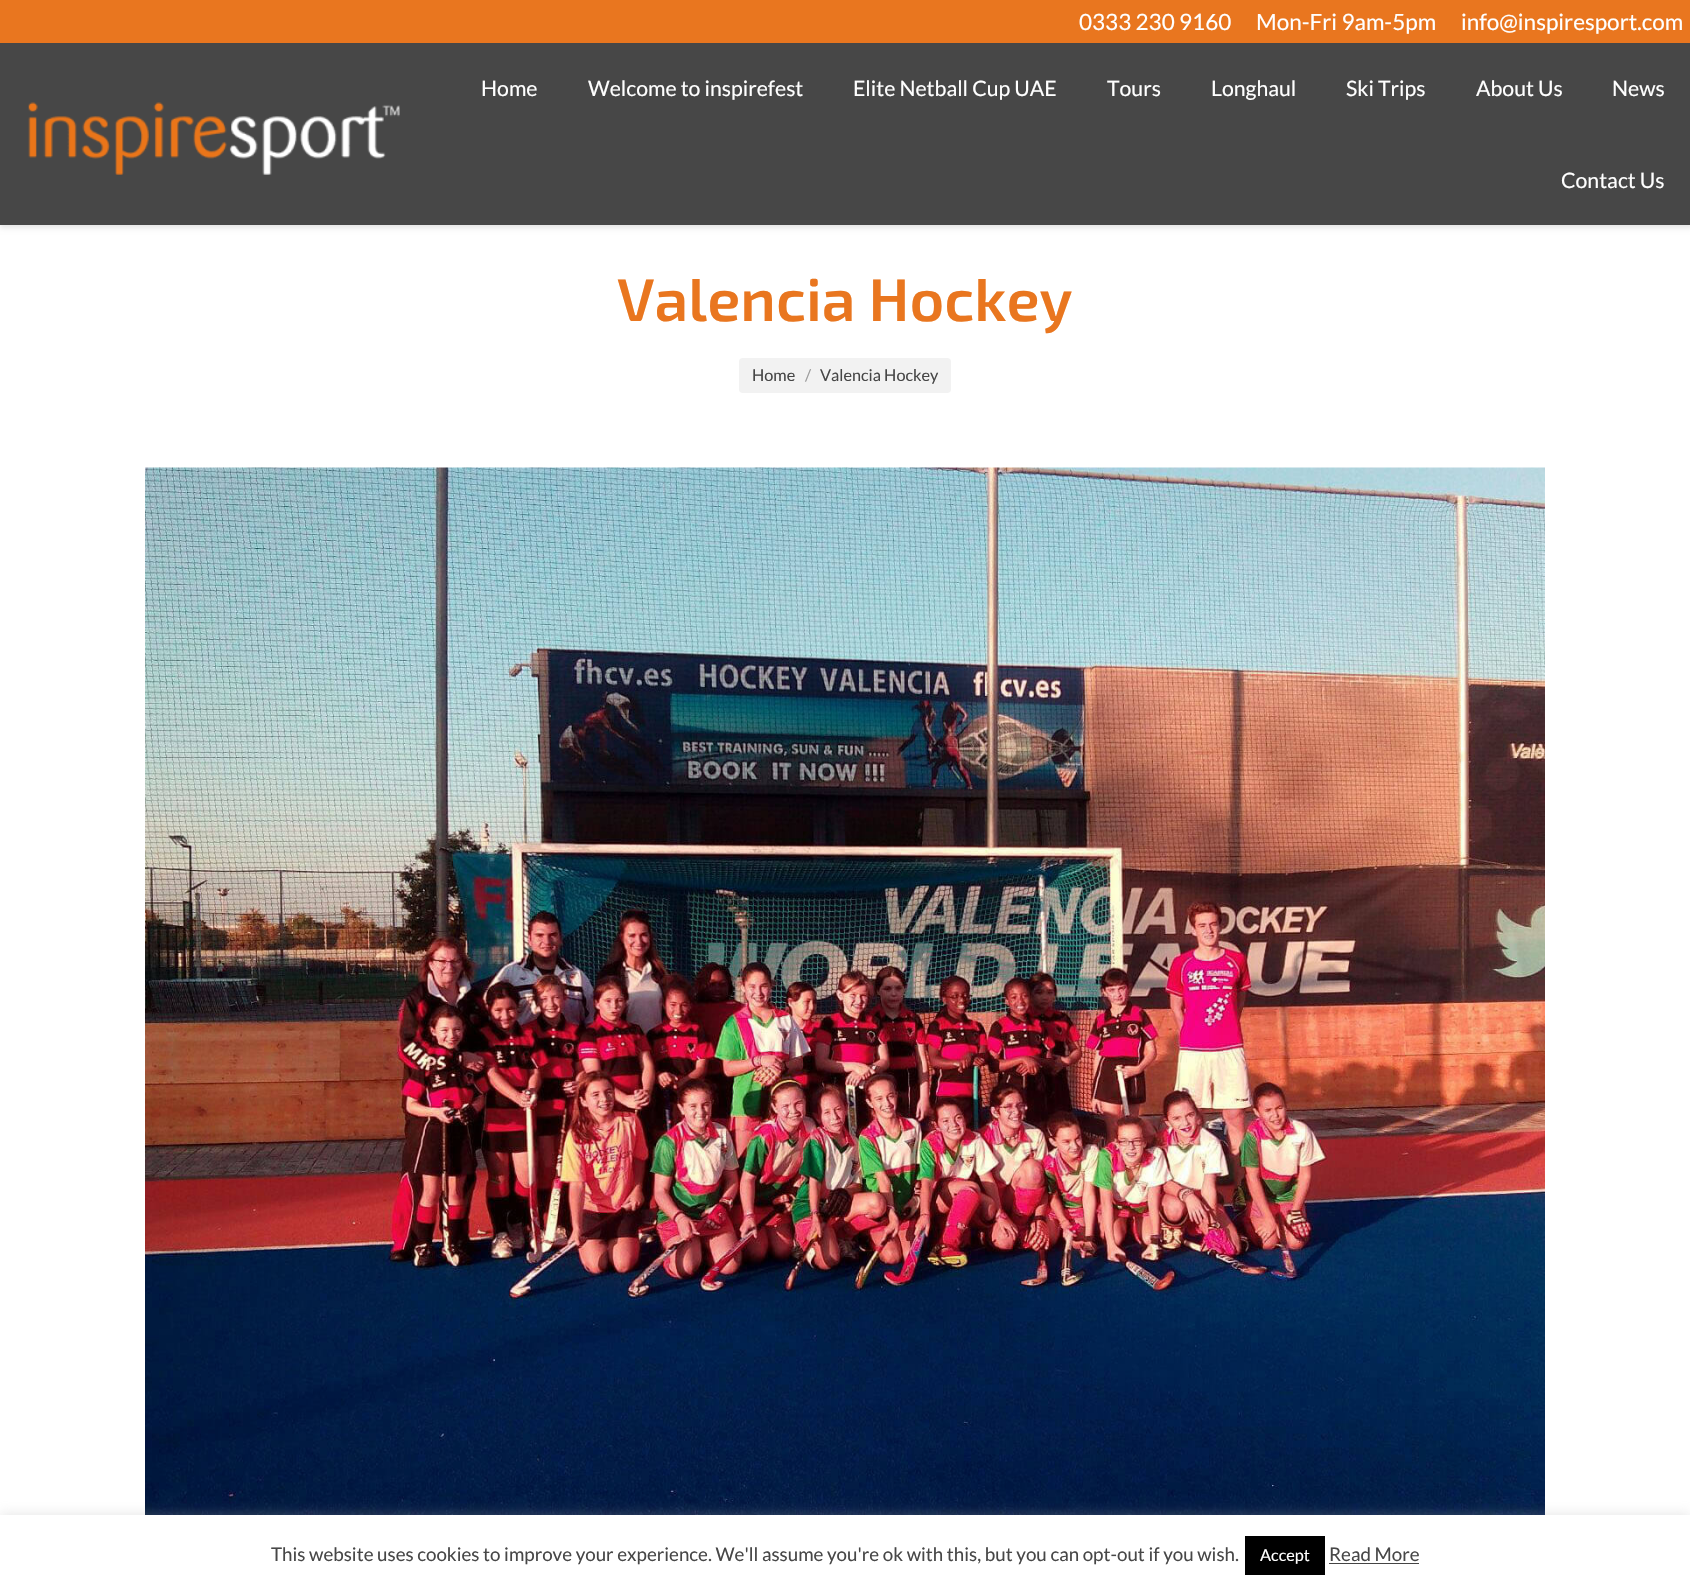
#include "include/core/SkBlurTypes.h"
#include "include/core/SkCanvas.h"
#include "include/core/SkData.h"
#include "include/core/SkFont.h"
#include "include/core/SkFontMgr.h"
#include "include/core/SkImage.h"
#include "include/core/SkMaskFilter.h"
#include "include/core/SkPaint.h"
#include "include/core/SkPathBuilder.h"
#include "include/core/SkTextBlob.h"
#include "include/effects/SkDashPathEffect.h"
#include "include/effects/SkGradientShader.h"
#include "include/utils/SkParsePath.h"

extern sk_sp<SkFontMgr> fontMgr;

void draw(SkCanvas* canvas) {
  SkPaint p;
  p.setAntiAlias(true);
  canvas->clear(SK_ColorWHITE);
  p.setColor(SkColorSetARGB(26, 0, 0, 0));
  p.setMaskFilter(SkMaskFilter::MakeBlur(kNormal_SkBlurStyle, 2.5f));
  canvas->drawRect(SkRect::MakeLTRB(0, 0, 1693, 228), p);
  p.setMaskFilter(nullptr);
  p.setColor(SkColorSetRGB(71, 71, 71));
  canvas->drawRect(SkRect::MakeLTRB(0, 43, 1690, 225), p);
  p.setColor(SkColorSetRGB(233, 118, 31));
  canvas->drawRect(SkRect::MakeLTRB(0, 0, 1690, 43), p);
  canvas->drawImageRect(SkImages::DeferredFromEncodedData(SkData::MakeFromFileName("images/1.png")), SkRect::MakeLTRB(28, 102, 400, 175), SkSamplingOptions());
  p.setColor(SkColorSetRGB(242, 242, 242));
  canvas->drawRoundRect(SkRect::MakeLTRB(739, 358, 951, 393), 4, 4, p);
  canvas->drawImageRect(SkImages::DeferredFromEncodedData(SkData::MakeFromFileName("images/2.png")), SkRect::MakeLTRB(145, 467, 1545, 1515), SkSamplingOptions());
  p.setColor(SkColorSetARGB(77, 172, 171, 171));
  p.setMaskFilter(SkMaskFilter::MakeBlur(kNormal_SkBlurStyle, 6));
  canvas->drawRect(SkRect::MakeLTRB(0, 1514, 1690, 1589), p);
  p.setMaskFilter(nullptr);
  p.setColor(SK_ColorWHITE);
  canvas->drawRect(SkRect::MakeLTRB(0, 1515, 1690, 1590), p);
  p.setColor(SK_ColorBLACK);
  canvas->drawRect(SkRect::MakeLTRB(1245, 1536, 1325, 1575), p);
  p.setColor(SkColorSetRGB(68, 68, 68));
  canvas->drawRect(SkRect::MakeLTRB(1329, 1563, 1419, 1564), p);
  SkFont font1(fontMgr->matchFamilyStyle("Lato", SkFontStyle::Normal()), 22.5f);
  font1.setSubpixel(true);
  p.setColor(SK_ColorWHITE);
  canvas->drawString("0333 230 9160", 1079, 30, font1, p);
  canvas->drawString("Mon-Fri 9am-5pm", 1256, 30, font1, p);
  canvas->drawString("info@inspiresport.com", 1461, 30, font1, p);
  SkFont font2(fontMgr->matchFamilyStyle("Lato", SkFontStyle::Normal()), 21.25f);
  font2.setSubpixel(true);
  canvas->drawString("Home", 481, 96, font2, p);
  canvas->drawString("Welcome to inspirefest", 588, 96, font2, p);
  canvas->drawString("Elite Netball Cup UAE", 853, 96, font2, p);
  canvas->drawString("Tours", 1107, 96, font2, p);
  canvas->drawString("Longhaul", 1211, 96, font2, p);
  canvas->drawString("Ski Trips", 1346, 96, font2, p);
  canvas->drawString("About Us", 1476, 96, font2, p);
  canvas->drawString("News", 1612, 96, font2, p);
  canvas->drawString("Contact Us", 1561, 188, font2, p);
  SkFont font3(fontMgr->matchFamilyStyle("Exo 2", SkFontStyle(600, SkFontStyle::kNormal_Width, SkFontStyle::kUpright_Slant)), 60);
  font3.setSubpixel(true);
  p.setColor(SkColorSetRGB(233, 118, 31));
  canvas->drawString("Valencia Hockey", 617, 321, font3, p);
  SkFont font4(fontMgr->matchFamilyStyle("Lato", SkFontStyle::Normal()), 16.25f);
  font4.setSubpixel(true);
  p.setColor(SkColorSetRGB(71, 71, 71));
  canvas->drawString("Home", 752, 381, font4, p);
  p.setColor(SkColorSetRGB(157, 157, 157));
  canvas->drawString("/", 805, 381, font4, p);
  p.setColor(SkColorSetRGB(71, 71, 71));
  canvas->drawString("Valencia Hockey", 820, 381, font4, p);
  SkFont font5(fontMgr->matchFamilyStyle("Lato", SkFontStyle::Normal()), 18.75f);
  font5.setSubpixel(true);
  canvas->drawString("This website uses cookies to improve your experience. We'll assume you're ok with this, but you can opt-out if you wish.", 271, 1561, font5, p);
  p.setColor(SK_ColorWHITE);
  canvas->drawString("Accept", 1260, 1561, font4, p);
  p.setColor(SkColorSetRGB(71, 71, 71));
  canvas->drawString("Read More", 1329, 1561, font5, p);
}
